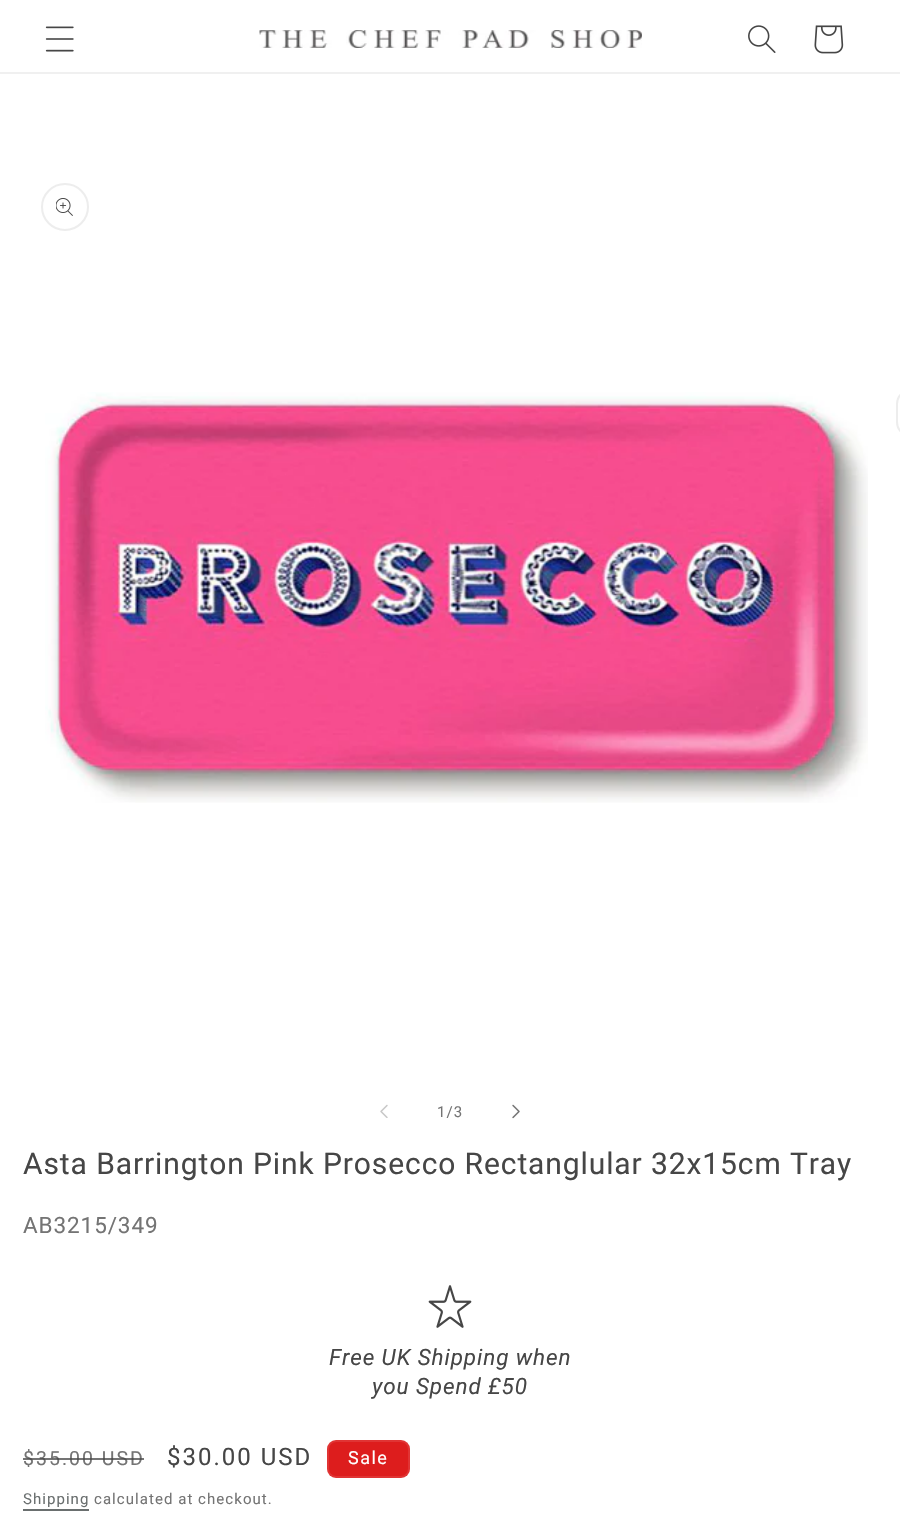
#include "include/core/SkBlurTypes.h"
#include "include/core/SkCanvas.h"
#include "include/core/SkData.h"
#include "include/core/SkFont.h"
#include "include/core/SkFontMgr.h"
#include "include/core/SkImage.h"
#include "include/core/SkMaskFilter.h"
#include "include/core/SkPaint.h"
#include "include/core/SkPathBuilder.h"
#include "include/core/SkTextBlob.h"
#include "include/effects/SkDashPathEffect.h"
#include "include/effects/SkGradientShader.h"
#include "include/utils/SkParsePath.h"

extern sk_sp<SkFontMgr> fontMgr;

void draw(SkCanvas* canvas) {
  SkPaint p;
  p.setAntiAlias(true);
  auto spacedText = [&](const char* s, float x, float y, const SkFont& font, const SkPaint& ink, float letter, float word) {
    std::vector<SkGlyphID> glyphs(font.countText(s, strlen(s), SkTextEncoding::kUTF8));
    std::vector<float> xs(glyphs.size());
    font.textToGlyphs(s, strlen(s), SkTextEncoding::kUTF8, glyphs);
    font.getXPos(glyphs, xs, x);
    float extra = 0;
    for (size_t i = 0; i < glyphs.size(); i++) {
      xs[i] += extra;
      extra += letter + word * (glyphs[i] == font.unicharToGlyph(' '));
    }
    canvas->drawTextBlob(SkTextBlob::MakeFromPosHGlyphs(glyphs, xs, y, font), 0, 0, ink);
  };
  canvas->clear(SK_ColorWHITE);
  p.setColor(SkColorSetRGB(240, 240, 240));
  canvas->drawRect(SkRect::MakeLTRB(0, 72, 900, 74), p);
  canvas->drawImageRect(SkImages::DeferredFromEncodedData(SkData::MakeFromFileName("images/1.png")), SkRect::MakeLTRB(45, 26, 74, 52), SkSamplingOptions());
  canvas->drawImageRect(SkImages::DeferredFromEncodedData(SkData::MakeFromFileName("images/2.png")), SkRect::MakeLTRB(259, 30, 642, 48), SkSamplingOptions());
  canvas->drawImageRect(SkImages::DeferredFromEncodedData(SkData::MakeFromFileName("images/3.png")), SkRect::MakeLTRB(748, 25, 776, 53), SkSamplingOptions());
  canvas->drawImageRect(SkImages::DeferredFromEncodedData(SkData::MakeFromFileName("images/4.png")), SkRect::MakeLTRB(814, 25, 844, 54), SkSamplingOptions());
  p.setStyle(SkPaint::kStroke_Style);
  p.setStrokeWidth(2);
  p.setColor(SkColorSetRGB(237, 237, 237));
  canvas->drawCircle(65, 207, 23, p);
  canvas->drawImageRect(SkImages::DeferredFromEncodedData(SkData::MakeFromFileName("images/5.png")), SkRect::MakeLTRB(56, 198, 73, 216), SkSamplingOptions());
  canvas->drawImageRect(SkImages::DeferredFromEncodedData(SkData::MakeFromFileName("images/6.png")), SkRect::MakeLTRB(45, 392, 868, 803), SkSamplingOptions());
  canvas->drawRoundRect(SkRect::MakeLTRB(897, 390, 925, 436), 23, 23, p);
  canvas->drawImageRect(SkImages::DeferredFromEncodedData(SkData::MakeFromFileName("images/7.png")), SkRect::MakeLTRB(380, 1104, 388, 1118), SkSamplingOptions());
  canvas->drawImageRect(SkImages::DeferredFromEncodedData(SkData::MakeFromFileName("images/8.png")), SkRect::MakeLTRB(512, 1104, 520, 1119), SkSamplingOptions());
  canvas->drawImageRect(SkImages::DeferredFromEncodedData(SkData::MakeFromFileName("images/9.png")), SkRect::MakeLTRB(428, 1285, 472, 1328), SkSamplingOptions());
  p.setStyle(SkPaint::kFill_Style);
  p.setColor(SkColorSetRGB(221, 29, 29));
  canvas->drawRoundRect(SkRect::MakeLTRB(327, 1440, 410, 1478), 9, 9, p);
  p.setStyle(SkPaint::kStroke_Style);
  p.setColor(SkColorSetARGB(26, 255, 255, 255));
  canvas->drawRoundRect(SkRect::MakeLTRB(328, 1441, 409, 1477), 8, 8, p);
  p.setStyle(SkPaint::kFill_Style);
  p.setColor(SkColorSetRGB(106, 111, 111));
  canvas->drawRect(SkRect::MakeLTRB(23, 1509, 89, 1511), p);
  SkFont font1(fontMgr->matchFamilyStyle("Roboto", SkFontStyle::Normal()), 15);
  font1.setSubpixel(true);
  p.setColor(SkColorSetRGB(116, 116, 116));
  spacedText("1/3", 437, 1117, font1, p, 1.05f, 0);
  SkFont font2(fontMgr->matchFamilyStyle("Roboto", SkFontStyle::Normal()), 30);
  font2.setSubpixel(true);
  p.setColor(SkColorSetRGB(70, 70, 70));
  spacedText("Asta Barrington Pink Prosecco Rectanglular 32x15cm Tray", 23, 1174, font2, p, 0.9f, 0);
  SkFont font3(fontMgr->matchFamilyStyle("Roboto", SkFontStyle::Normal()), 22.5f);
  font3.setSubpixel(true);
  p.setColor(SkColorSetRGB(116, 116, 116));
  spacedText("AB3215/349", 23, 1233, font3, p, 0.9f, 0);
  SkFont font4(fontMgr->matchFamilyStyle("Roboto", SkFontStyle::Italic()), 22.5f);
  font4.setSubpixel(true);
  p.setColor(SkColorSetRGB(70, 70, 70));
  spacedText("Free UK Shipping when", 329, 1365, font4, p, 0.9f, 0);
  spacedText("you Spend £50", 372, 1394, font4, p, 0.9f, 0);
  SkFont font5(fontMgr->matchFamilyStyle("Roboto", SkFontStyle::Normal()), 19.5f);
  font5.setSubpixel(true);
  p.setColor(SkColorSetRGB(116, 116, 116));
  spacedText("$35.00 USD", 23, 1465, font5, p, 2, 0);
  p.setColor(SkColorSetARGB(191, 70, 70, 70));
  canvas->drawRect(SkRect::MakeLTRB(23, 1458, 144, 1460), p);
  SkFont font6(fontMgr->matchFamilyStyle("Roboto", SkFontStyle::Normal()), 24);
  font6.setSubpixel(true);
  p.setColor(SkColorSetRGB(70, 70, 70));
  spacedText("$30.00 USD", 167, 1465, font6, p, 2, 0);
  SkFont font7(fontMgr->matchFamilyStyle("Roboto", SkFontStyle::Normal()), 18);
  font7.setSubpixel(true);
  p.setColor(SK_ColorWHITE);
  spacedText("Sale", 348, 1464, font7, p, 1.5f, 0);
  p.setColor(SkColorSetRGB(106, 111, 111));
  spacedText("Shipping", 23, 1504, font1, p, 1.05f, 0);
  p.setColor(SkColorSetRGB(116, 116, 116));
  spacedText("calculated at checkout.", 94, 1504, font1, p, 1.05f, 0);
}
